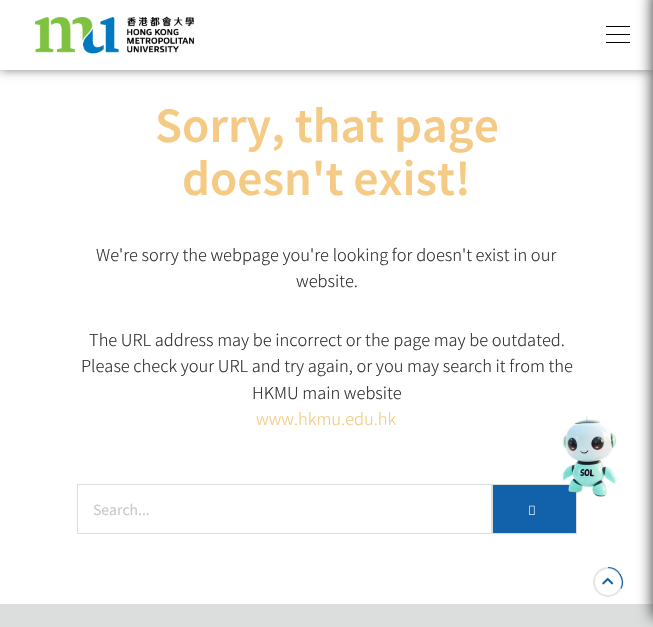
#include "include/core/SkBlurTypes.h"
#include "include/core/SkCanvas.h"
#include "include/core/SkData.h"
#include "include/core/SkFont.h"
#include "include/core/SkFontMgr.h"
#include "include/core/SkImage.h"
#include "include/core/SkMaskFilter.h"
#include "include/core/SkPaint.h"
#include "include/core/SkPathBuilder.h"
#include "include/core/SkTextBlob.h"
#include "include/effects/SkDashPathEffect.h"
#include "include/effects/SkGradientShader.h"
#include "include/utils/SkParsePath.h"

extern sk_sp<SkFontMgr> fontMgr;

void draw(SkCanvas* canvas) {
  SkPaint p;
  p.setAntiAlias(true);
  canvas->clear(SK_ColorWHITE);
  p.setColor(SkColorSetARGB(128, 0, 0, 0));
  p.setMaskFilter(SkMaskFilter::MakeBlur(kNormal_SkBlurStyle, 5));
  canvas->drawRect(SkRect::MakeLTRB(0, 0, 653, 70), p);
  p.setMaskFilter(nullptr);
  p.setColor(SK_ColorWHITE);
  canvas->drawRect(SkRect::MakeLTRB(0, 0, 653, 70), p);
  canvas->drawImageRect(SkImages::DeferredFromEncodedData(SkData::MakeFromFileName("images/1.png")), SkRect::MakeLTRB(35, 16, 194, 54), SkSamplingOptions());
  p.setColor(SK_ColorBLACK);
  canvas->drawRect(SkRect::MakeLTRB(606, 34, 630, 35), p);
  canvas->drawRect(SkRect::MakeLTRB(606, 26, 630, 27), p);
  canvas->drawRect(SkRect::MakeLTRB(606, 42, 630, 43), p);
  p.setColor(SkColorSetRGB(220, 221, 221));
  canvas->drawRect(SkRect::MakeLTRB(0, 604, 653, 627), p);
  p.setColor(SkColorSetRGB(45, 45, 45));
  p.setMaskFilter(SkMaskFilter::MakeBlur(kNormal_SkBlurStyle, 7.5f));
  canvas->drawRect(SkRect::MakeLTRB(653, -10, 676, 617), p);
  p.setMaskFilter(nullptr);
  p.setStyle(SkPaint::kStroke_Style);
  p.setStrokeWidth(1);
  p.setColor(SkColorSetRGB(221, 221, 221));
  canvas->drawRect(SkRect::MakeLTRB(77.5f, 484.5f, 491.5f, 533.5f), p);
  p.setStyle(SkPaint::kFill_Style);
  p.setColor(SkColorSetRGB(17, 98, 171));
  canvas->drawRect(SkRect::MakeLTRB(492.5f, 484.5f, 576.5f, 533.5f), p);
  p.setStyle(SkPaint::kStroke_Style);
  p.setColor(SkColorSetRGB(221, 221, 221));
  canvas->drawRect(SkRect::MakeLTRB(492.5f, 484.5f, 576.5f, 533.5f), p);
  canvas->drawImageRect(SkImages::DeferredFromEncodedData(SkData::MakeFromFileName("images/2.png")), SkRect::MakeLTRB(529, 505, 535, 515), SkSamplingOptions());
  canvas->drawImageRect(SkImages::DeferredFromEncodedData(SkData::MakeFromFileName("images/3.png")), SkRect::MakeLTRB(562, 415, 616, 497), SkSamplingOptions());
  p.setStrokeWidth(2);
  p.setColor(SkColorSetRGB(230, 230, 230));
  canvas->drawCircle(608, 582, 14, p);
  p.setStrokeWidth(1.2f);
  p.setColor(SkColorSetRGB(17, 98, 171));
  canvas->drawPath(SkPathBuilder().moveTo(608, 567.5f).cubicTo(618.5f, 567.5f, 625.5f, 579.5f, 621, 588.5f).detach(), p);
  canvas->drawImageRect(SkImages::DeferredFromEncodedData(SkData::MakeFromFileName("images/4.png")), SkRect::MakeLTRB(602, 577, 614, 585), SkSamplingOptions());
  SkFont font1(fontMgr->matchFamilyStyle("Noto Sans TC", SkFontStyle(600, SkFontStyle::kNormal_Width, SkFontStyle::kUpright_Slant)), 44);
  font1.setSubpixel(true);
  p.setStyle(SkPaint::kFill_Style);
  p.setColor(SkColorSetRGB(244, 202, 132));
  canvas->drawString("Sorry, that page", 155, 142, font1, p);
  canvas->drawString("doesn't exist!", 182, 195, font1, p);
  SkFont font2(fontMgr->matchFamilyStyle("Noto Sans TC", SkFontStyle(300, SkFontStyle::kNormal_Width, SkFontStyle::kUpright_Slant)), 16.5f);
  font2.setSubpixel(true);
  p.setColor(SkColorSetRGB(51, 51, 51));
  canvas->drawString("We're sorry the webpage you're looking for doesn't exist in our", 96, 261, font2, p);
  canvas->drawString("website.", 296, 287, font2, p);
  canvas->drawString("The URL address may be incorrect or the page may be outdated.", 89, 346, font2, p);
  canvas->drawString("Please check your URL and try again, or you may search it from the", 81, 372, font2, p);
  canvas->drawString("HKMU main website", 252, 399, font2, p);
  p.setColor(SkColorSetRGB(244, 202, 132));
  canvas->drawString("www.hkmu.edu.hk", 256, 425, font2, p);
  SkFont font3(fontMgr->matchFamilyStyle("Noto Sans TC", SkFontStyle::Normal()), 14);
  font3.setSubpixel(true);
  p.setColor(SkColorSetRGB(200, 200, 200));
  canvas->drawString("Search...", 93, 515, font3, p);
}
